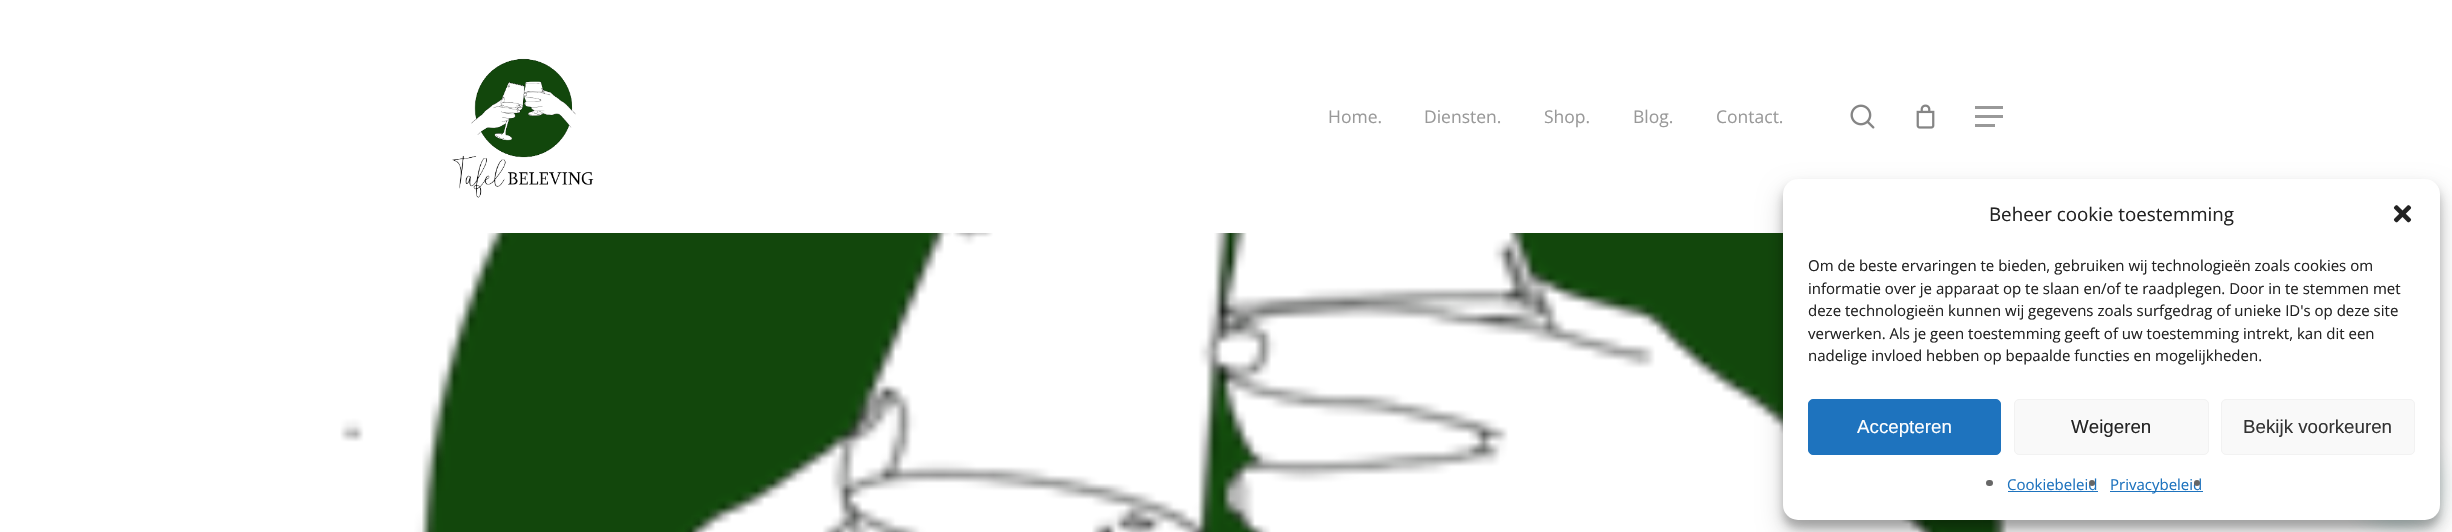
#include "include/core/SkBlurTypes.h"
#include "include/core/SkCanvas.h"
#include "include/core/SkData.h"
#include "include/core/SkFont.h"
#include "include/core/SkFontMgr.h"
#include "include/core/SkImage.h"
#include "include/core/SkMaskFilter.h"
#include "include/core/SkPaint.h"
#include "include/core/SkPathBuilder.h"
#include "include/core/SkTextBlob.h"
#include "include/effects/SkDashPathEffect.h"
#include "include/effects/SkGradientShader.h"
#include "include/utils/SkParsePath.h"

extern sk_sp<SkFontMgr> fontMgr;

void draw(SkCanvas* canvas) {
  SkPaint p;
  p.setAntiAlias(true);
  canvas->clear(SK_ColorWHITE);
  canvas->drawImageRect(SkImages::DeferredFromEncodedData(SkData::MakeFromFileName("images/1.png")), SkRect::MakeLTRB(452, 58, 594, 198), SkSamplingOptions());
  canvas->drawImageRect(SkImages::DeferredFromEncodedData(SkData::MakeFromFileName("images/2.png")), SkRect::MakeLTRB(1850, 104, 1875, 129), SkSamplingOptions());
  canvas->drawImageRect(SkImages::DeferredFromEncodedData(SkData::MakeFromFileName("images/3.png")), SkRect::MakeLTRB(1916, 104, 1935, 129), SkSamplingOptions());
  p.setColor(SkColorSetRGB(153, 153, 153));
  canvas->drawRect(SkRect::MakeLTRB(1975, 106, 2003, 109), p);
  canvas->drawRect(SkRect::MakeLTRB(1975, 124, 1995, 127), p);
  canvas->drawRect(SkRect::MakeLTRB(1975, 115, 2003, 118), p);
  canvas->drawImageRect(SkImages::DeferredFromEncodedData(SkData::MakeFromFileName("images/4.png")), SkRect::MakeLTRB(340, 233, 2007, 532), SkSamplingOptions());
  p.setColor(SkColorSetARGB(59, 0, 0, 0));
  p.setMaskFilter(SkMaskFilter::MakeBlur(kNormal_SkBlurStyle, 4));
  canvas->drawRoundRect(SkRect::MakeLTRB(1783, 186, 2440, 528), 15, 15, p);
  p.setMaskFilter(nullptr);
  p.setColor(SkColorSetARGB(48, 0, 0, 0));
  p.setMaskFilter(SkMaskFilter::MakeBlur(kNormal_SkBlurStyle, 12.5f));
  canvas->drawRoundRect(SkRect::MakeLTRB(1783, 191, 2440, 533), 15, 15, p);
  p.setMaskFilter(nullptr);
  p.setColor(SkColorSetARGB(61, 7, 94, 84));
  p.setMaskFilter(SkMaskFilter::MakeBlur(kNormal_SkBlurStyle, 15));
  canvas->drawRoundRect(SkRect::MakeLTRB(2361, 448, 2436, 523), 37.5f, 37.5f, p);
  p.setMaskFilter(nullptr);
  p.setColor(SK_ColorWHITE);
  canvas->drawRoundRect(SkRect::MakeLTRB(1783, 179, 2440, 520), 15, 15, p);
  canvas->drawImageRect(SkImages::DeferredFromEncodedData(SkData::MakeFromFileName("images/5.png")), SkRect::MakeLTRB(2393, 205, 2412, 223), SkSamplingOptions());
  p.setColor(SkColorSetRGB(30, 115, 190));
  canvas->drawRoundRect(SkRect::MakeLTRB(1808.5f, 399.5f, 2000.5f, 454.5f), 4.5f, 4.5f, p);
  p.setStyle(SkPaint::kStroke_Style);
  p.setStrokeWidth(1);
  canvas->drawRoundRect(SkRect::MakeLTRB(1808.5f, 399.5f, 2000.5f, 454.5f), 4.5f, 4.5f, p);
  p.setStyle(SkPaint::kFill_Style);
  p.setColor(SkColorSetRGB(249, 249, 249));
  canvas->drawRoundRect(SkRect::MakeLTRB(2014.5f, 399.5f, 2208.5f, 454.5f), 4.5f, 4.5f, p);
  p.setStyle(SkPaint::kStroke_Style);
  p.setColor(SkColorSetRGB(242, 242, 242));
  canvas->drawRoundRect(SkRect::MakeLTRB(2014.5f, 399.5f, 2208.5f, 454.5f), 4.5f, 4.5f, p);
  p.setStyle(SkPaint::kFill_Style);
  p.setColor(SkColorSetRGB(249, 249, 249));
  canvas->drawRoundRect(SkRect::MakeLTRB(2221.5f, 399.5f, 2414.5f, 454.5f), 4.5f, 4.5f, p);
  p.setStyle(SkPaint::kStroke_Style);
  p.setColor(SkColorSetRGB(242, 242, 242));
  canvas->drawRoundRect(SkRect::MakeLTRB(2221.5f, 399.5f, 2414.5f, 454.5f), 4.5f, 4.5f, p);
  p.setStyle(SkPaint::kFill_Style);
  p.setColor(SkColorSetRGB(103, 103, 103));
  canvas->drawRoundRect(SkRect::MakeLTRB(1986, 480, 1993, 486), 3, 3, p);
  p.setColor(SkColorSetRGB(30, 115, 190));
  canvas->drawRect(SkRect::MakeLTRB(2008, 491, 2098, 492), p);
  canvas->drawRect(SkRect::MakeLTRB(2110, 491, 2203, 492), p);
  SkFont font1(fontMgr->matchFamilyStyle("Open Sans", SkFontStyle::Normal()), 17.5f);
  font1.setSubpixel(true);
  p.setColor(SkColorSetRGB(153, 153, 153));
  canvas->drawString("Home.", 1328, 123, font1, p);
  canvas->drawString("Diensten.", 1424, 123, font1, p);
  canvas->drawString("Shop.", 1544, 123, font1, p);
  canvas->drawString("Blog.", 1633, 123, font1, p);
  canvas->drawString("Contact.", 1716, 123, font1, p);
  SkFont font2(fontMgr->matchFamilyStyle("Open Sans", SkFontStyle::Normal()), 18.75f);
  font2.setSubpixel(true);
  p.setColor(SkColorSetRGB(34, 34, 34));
  canvas->drawString("Beheer cookie toestemming", 1989, 221, font2, p);
  SkFont font3(fontMgr->matchFamilyStyle("Open Sans", SkFontStyle::Normal()), 15);
  font3.setSubpixel(true);
  canvas->drawString("Om de beste ervaringen te bieden, gebruiken wij technologieën zoals cookies om", 1808, 271, font3, p);
  canvas->drawString("informatie over je apparaat op te slaan en/of te raadplegen. Door in te stemmen met", 1808, 294, font3, p);
  canvas->drawString("deze technologieën kunnen wij gegevens zoals surfgedrag of unieke ID's op deze site", 1808, 316, font3, p);
  canvas->drawString("verwerken. Als je geen toestemming geeft of uw toestemming intrekt, kan dit een", 1808, 339, font3, p);
  canvas->drawString("nadelige invloed hebben op bepaalde functies en mogelijkheden.", 1808, 361, font3, p);
  SkFont font4(fontMgr->matchFamilyStyle("Liberation Sans", SkFontStyle::Normal()), 18.75f);
  font4.setSubpixel(true);
  p.setColor(SK_ColorWHITE);
  canvas->drawString("Accepteren", 1857, 433, font4, p);
  p.setColor(SkColorSetRGB(34, 34, 34));
  canvas->drawString("Weigeren", 2071, 433, font4, p);
  p.setColor(SkColorSetRGB(51, 51, 51));
  canvas->drawString("Bekijk voorkeuren", 2243, 433, font4, p);
  p.setColor(SkColorSetRGB(30, 115, 190));
  canvas->drawString("Cookiebeleid", 2007, 490, font3, p);
  p.setColor(SkColorSetRGB(103, 103, 103));
  canvas->drawCircle(2092, 483, 3, p);
  p.setColor(SkColorSetRGB(30, 115, 190));
  canvas->drawString("Privacybeleid", 2110, 490, font3, p);
  p.setColor(SkColorSetRGB(103, 103, 103));
  canvas->drawCircle(2197, 483, 3, p);
}
